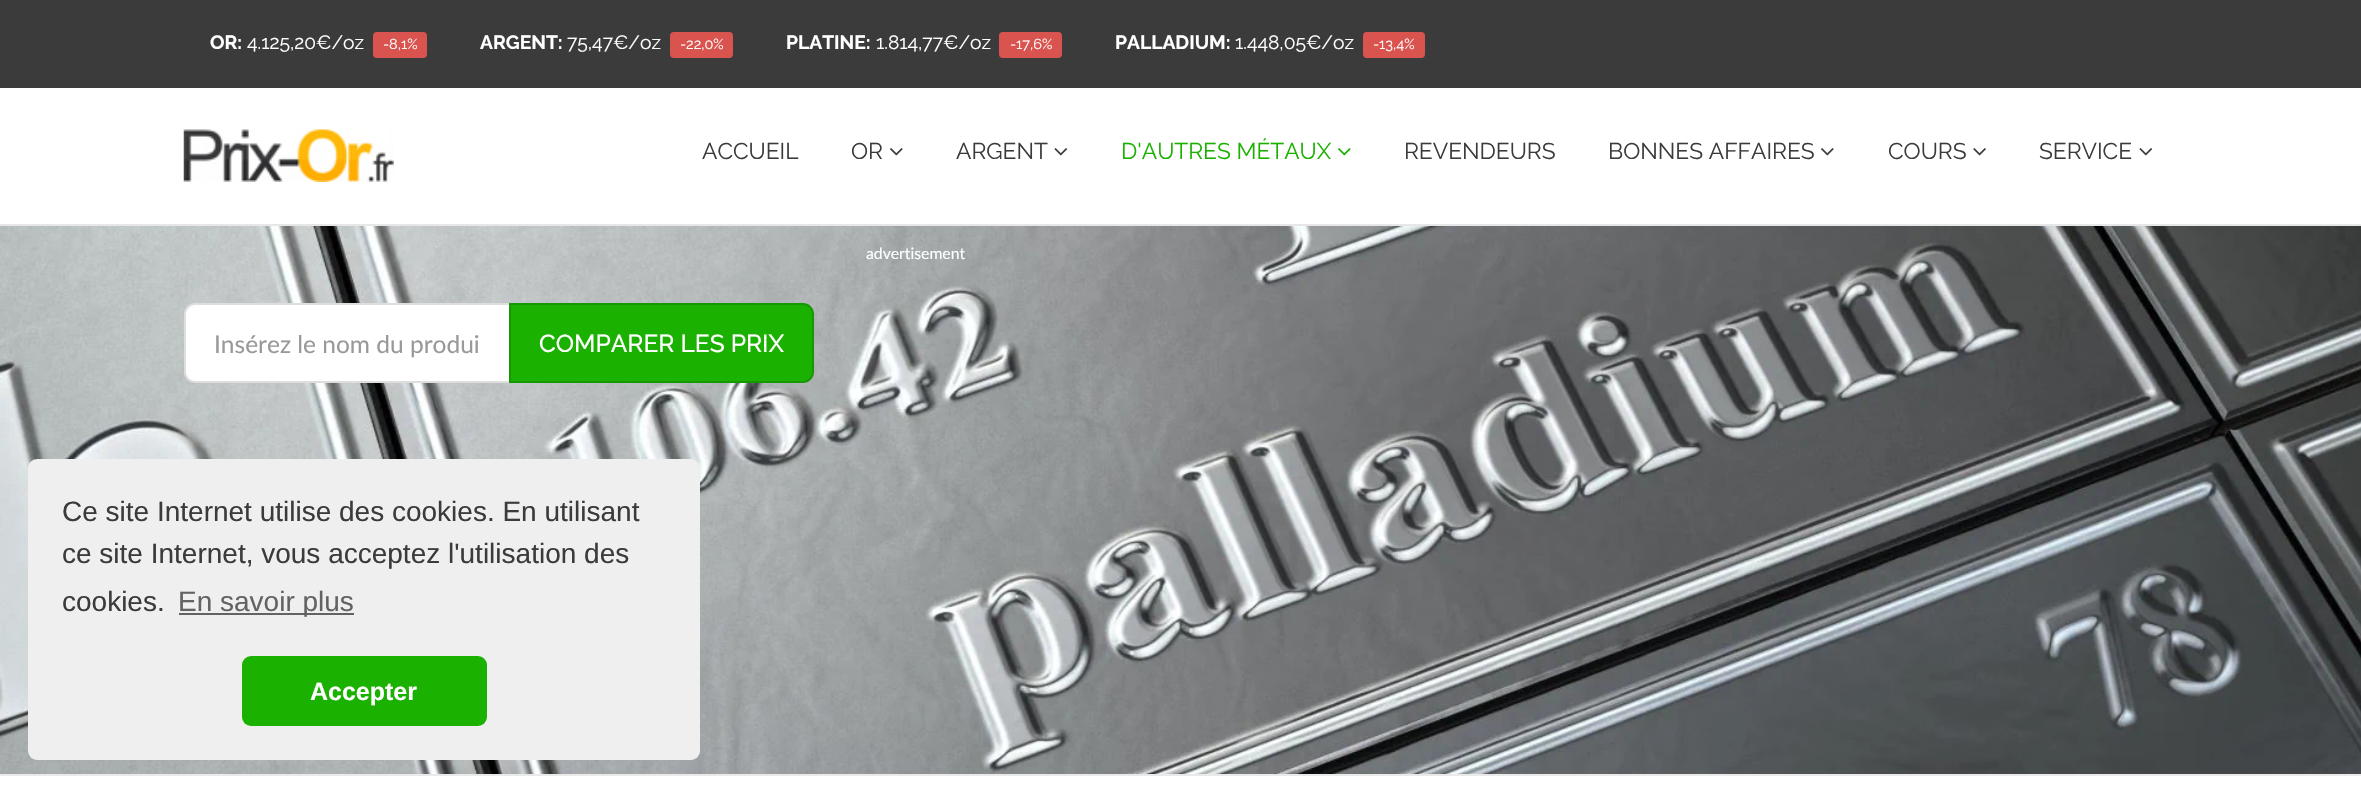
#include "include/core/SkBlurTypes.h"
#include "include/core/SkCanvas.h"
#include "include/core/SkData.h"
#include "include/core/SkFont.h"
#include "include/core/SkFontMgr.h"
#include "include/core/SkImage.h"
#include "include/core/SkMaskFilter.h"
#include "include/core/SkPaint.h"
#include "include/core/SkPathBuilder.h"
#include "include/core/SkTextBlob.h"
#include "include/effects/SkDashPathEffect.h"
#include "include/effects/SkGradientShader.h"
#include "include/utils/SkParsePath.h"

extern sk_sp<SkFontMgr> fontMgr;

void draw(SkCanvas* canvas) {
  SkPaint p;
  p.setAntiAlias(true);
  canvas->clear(SK_ColorWHITE);
  p.setColor(SkColorSetRGB(231, 231, 231));
  canvas->drawRect(SkRect::MakeLTRB(0, 224, 2361, 226), p);
  p.setColor(SkColorSetRGB(59, 59, 59));
  canvas->drawRect(SkRect::MakeLTRB(0, 0, 2361, 88), p);
  p.setColor(SkColorSetRGB(217, 83, 79));
  canvas->drawRoundRect(SkRect::MakeLTRB(373, 32, 427, 58), 4, 4, p);
  canvas->drawRoundRect(SkRect::MakeLTRB(670, 32, 733, 58), 4, 4, p);
  canvas->drawRoundRect(SkRect::MakeLTRB(999, 32, 1062, 58), 4, 4, p);
  canvas->drawRoundRect(SkRect::MakeLTRB(1363, 32, 1425, 58), 4, 4, p);
  canvas->drawImageRect(SkImages::DeferredFromEncodedData(SkData::MakeFromFileName("images/1.png")), SkRect::MakeLTRB(183, 129, 394, 182), SkSamplingOptions());
  canvas->drawImageRect(SkImages::DeferredFromEncodedData(SkData::MakeFromFileName("images/2.png")), SkRect::MakeLTRB(890, 148, 903, 156), SkSamplingOptions());
  canvas->drawImageRect(SkImages::DeferredFromEncodedData(SkData::MakeFromFileName("images/3.png")), SkRect::MakeLTRB(1054, 148, 1068, 156), SkSamplingOptions());
  canvas->drawImageRect(SkImages::DeferredFromEncodedData(SkData::MakeFromFileName("images/4.png")), SkRect::MakeLTRB(1338, 148, 1351, 156), SkSamplingOptions());
  canvas->drawImageRect(SkImages::DeferredFromEncodedData(SkData::MakeFromFileName("images/2.png")), SkRect::MakeLTRB(1821, 148, 1834, 156), SkSamplingOptions());
  canvas->drawImageRect(SkImages::DeferredFromEncodedData(SkData::MakeFromFileName("images/5.png")), SkRect::MakeLTRB(1973, 148, 1986, 156), SkSamplingOptions());
  canvas->drawImageRect(SkImages::DeferredFromEncodedData(SkData::MakeFromFileName("images/3.png")), SkRect::MakeLTRB(2139, 148, 2153, 156), SkSamplingOptions());
  canvas->drawImageRect(SkImages::DeferredFromEncodedData(SkData::MakeFromFileName("images/6.png")), SkRect::MakeLTRB(0, 226, 2361, 774), SkSamplingOptions());
  p.setColor(SkColorSetRGB(234, 234, 234));
  canvas->drawRect(SkRect::MakeLTRB(0, 774, 2361, 776), p);
  p.setColor(SK_ColorWHITE);
  canvas->drawPath(SkPathBuilder().moveTo(195, 304).lineTo(510, 304).lineTo(510, 382).lineTo(195, 382).cubicTo(189.5f, 382, 185, 377.5f, 185, 372).lineTo(185, 314).cubicTo(185, 308.5f, 189.5f, 304, 195, 304).close().detach(), p);
  p.setStyle(SkPaint::kStroke_Style);
  p.setStrokeWidth(2);
  p.setColor(SkColorSetRGB(222, 222, 222));
  canvas->drawPath(SkPathBuilder().moveTo(195, 304).lineTo(510, 304).lineTo(510, 382).lineTo(195, 382).cubicTo(189.5f, 382, 185, 377.5f, 185, 372).lineTo(185, 314).cubicTo(185, 308.5f, 189.5f, 304, 195, 304).close().detach(), p);
  p.setStyle(SkPaint::kFill_Style);
  p.setColor(SkColorSetRGB(26, 177, 0));
  canvas->drawPath(SkPathBuilder().moveTo(510, 304).lineTo(803, 304).cubicTo(808.5f, 304, 813, 308.5f, 813, 314).lineTo(813, 372).cubicTo(813, 377.5f, 808.5f, 382, 803, 382).lineTo(510, 382).close().detach(), p);
  p.setStyle(SkPaint::kStroke_Style);
  p.setColor(SkColorSetRGB(22, 152, 0));
  canvas->drawPath(SkPathBuilder().moveTo(510, 304).lineTo(803, 304).cubicTo(808.5f, 304, 813, 308.5f, 813, 314).lineTo(813, 372).cubicTo(813, 377.5f, 808.5f, 382, 803, 382).lineTo(510, 382).close().detach(), p);
  p.setStyle(SkPaint::kFill_Style);
  p.setColor(SkColorSetRGB(239, 239, 239));
  canvas->drawRoundRect(SkRect::MakeLTRB(28, 459, 700, 760), 9, 9, p);
  p.setColor(SkColorSetRGB(99, 99, 99));
  canvas->drawRect(SkRect::MakeLTRB(179, 613, 354, 615), p);
  p.setColor(SkColorSetRGB(26, 177, 0));
  canvas->drawRoundRect(SkRect::MakeLTRB(242, 656, 487, 726), 9, 9, p);
  SkFont font1(fontMgr->matchFamilyStyle("Raleway", SkFontStyle::Bold()), 19.25f);
  font1.setSubpixel(true);
  p.setColor(SK_ColorWHITE);
  canvas->drawString("OR:", 210, 49, font1, p);
  SkFont font2(fontMgr->matchFamilyStyle("Raleway", SkFontStyle::Normal()), 19.25f);
  font2.setSubpixel(true);
  canvas->drawString("4.125,20 €/oz", 247, 49, font2, p);
  SkFont font3(fontMgr->matchFamilyStyle("Raleway", SkFontStyle::Normal()), 14.5f);
  font3.setSubpixel(true);
  canvas->drawString("-8,1%", 383, 49, font3, p);
  canvas->drawString("ARGENT:", 480, 49, font1, p);
  canvas->drawString("75,47 €/oz", 567, 49, font2, p);
  canvas->drawString("-22,0%", 680, 49, font3, p);
  canvas->drawString("PLATINE:", 786, 49, font1, p);
  canvas->drawString("1.814,77 €/oz", 876, 49, font2, p);
  canvas->drawString("-17,6%", 1010, 49, font3, p);
  canvas->drawString("PALLADIUM:", 1115, 49, font1, p);
  canvas->drawString("1.448,05 €/oz", 1235, 49, font2, p);
  canvas->drawString("-13,4%", 1373, 49, font3, p);
  SkFont font4(fontMgr->matchFamilyStyle("Raleway", SkFontStyle::Normal()), 22.75f);
  font4.setSubpixel(true);
  p.setColor(SkColorSetRGB(59, 59, 59));
  canvas->drawString("ACCUEIL", 702, 159, font4, p);
  canvas->drawString("OR", 851, 159, font4, p);
  canvas->drawString("ARGENT", 956, 159, font4, p);
  p.setColor(SkColorSetRGB(26, 177, 0));
  canvas->drawString("D'AUTRES MÉTAUX", 1121, 159, font4, p);
  p.setColor(SkColorSetRGB(59, 59, 59));
  canvas->drawString("REVENDEURS", 1404, 159, font4, p);
  canvas->drawString("BONNES AFFAIRES", 1608, 159, font4, p);
  canvas->drawString("COURS", 1888, 159, font4, p);
  canvas->drawString("SERVICE", 2039, 159, font4, p);
  SkFont font5(fontMgr->matchFamilyStyle("Lato", SkFontStyle::Normal()), 15.75f);
  font5.setSubpixel(true);
  p.setColor(SK_ColorWHITE);
  canvas->drawString("advertisement", 866, 259, font5, p);
  SkFont font6(fontMgr->matchFamilyStyle("Lato", SkFontStyle::Normal()), 24.5f);
  font6.setSubpixel(true);
  p.setColor(SkColorSetRGB(153, 153, 153));
  canvas->drawString("Insérez le nom du produi", 214, 353, font6, p);
  SkFont font7(fontMgr->matchFamilyStyle("Raleway", SkFontStyle(500, SkFontStyle::kNormal_Width, SkFontStyle::kUpright_Slant)), 24.5f);
  font7.setSubpixel(true);
  p.setColor(SK_ColorWHITE);
  canvas->drawString("COMPARER LES PRIX", 539, 352, font7, p);
  SkFont font8(fontMgr->matchFamilyStyle("Liberation Sans", SkFontStyle::Normal()), 28);
  font8.setSubpixel(true);
  p.setColor(SkColorSetRGB(59, 59, 59));
  canvas->drawString("Ce site Internet utilise des cookies. En utilisant", 62, 521, font8, p);
  canvas->drawString("ce site Internet, vous acceptez l'utilisation des", 62, 563, font8, p);
  canvas->drawString("cookies.", 62, 611, font8, p);
  p.setColor(SkColorSetRGB(99, 99, 99));
  canvas->drawString("En savoir plus", 178, 611, font8, p);
  SkFont font9(fontMgr->matchFamilyStyle("Liberation Sans", SkFontStyle::Bold()), 25);
  font9.setSubpixel(true);
  p.setColor(SK_ColorWHITE);
  canvas->drawString("Accepter", 310, 700, font9, p);
}
